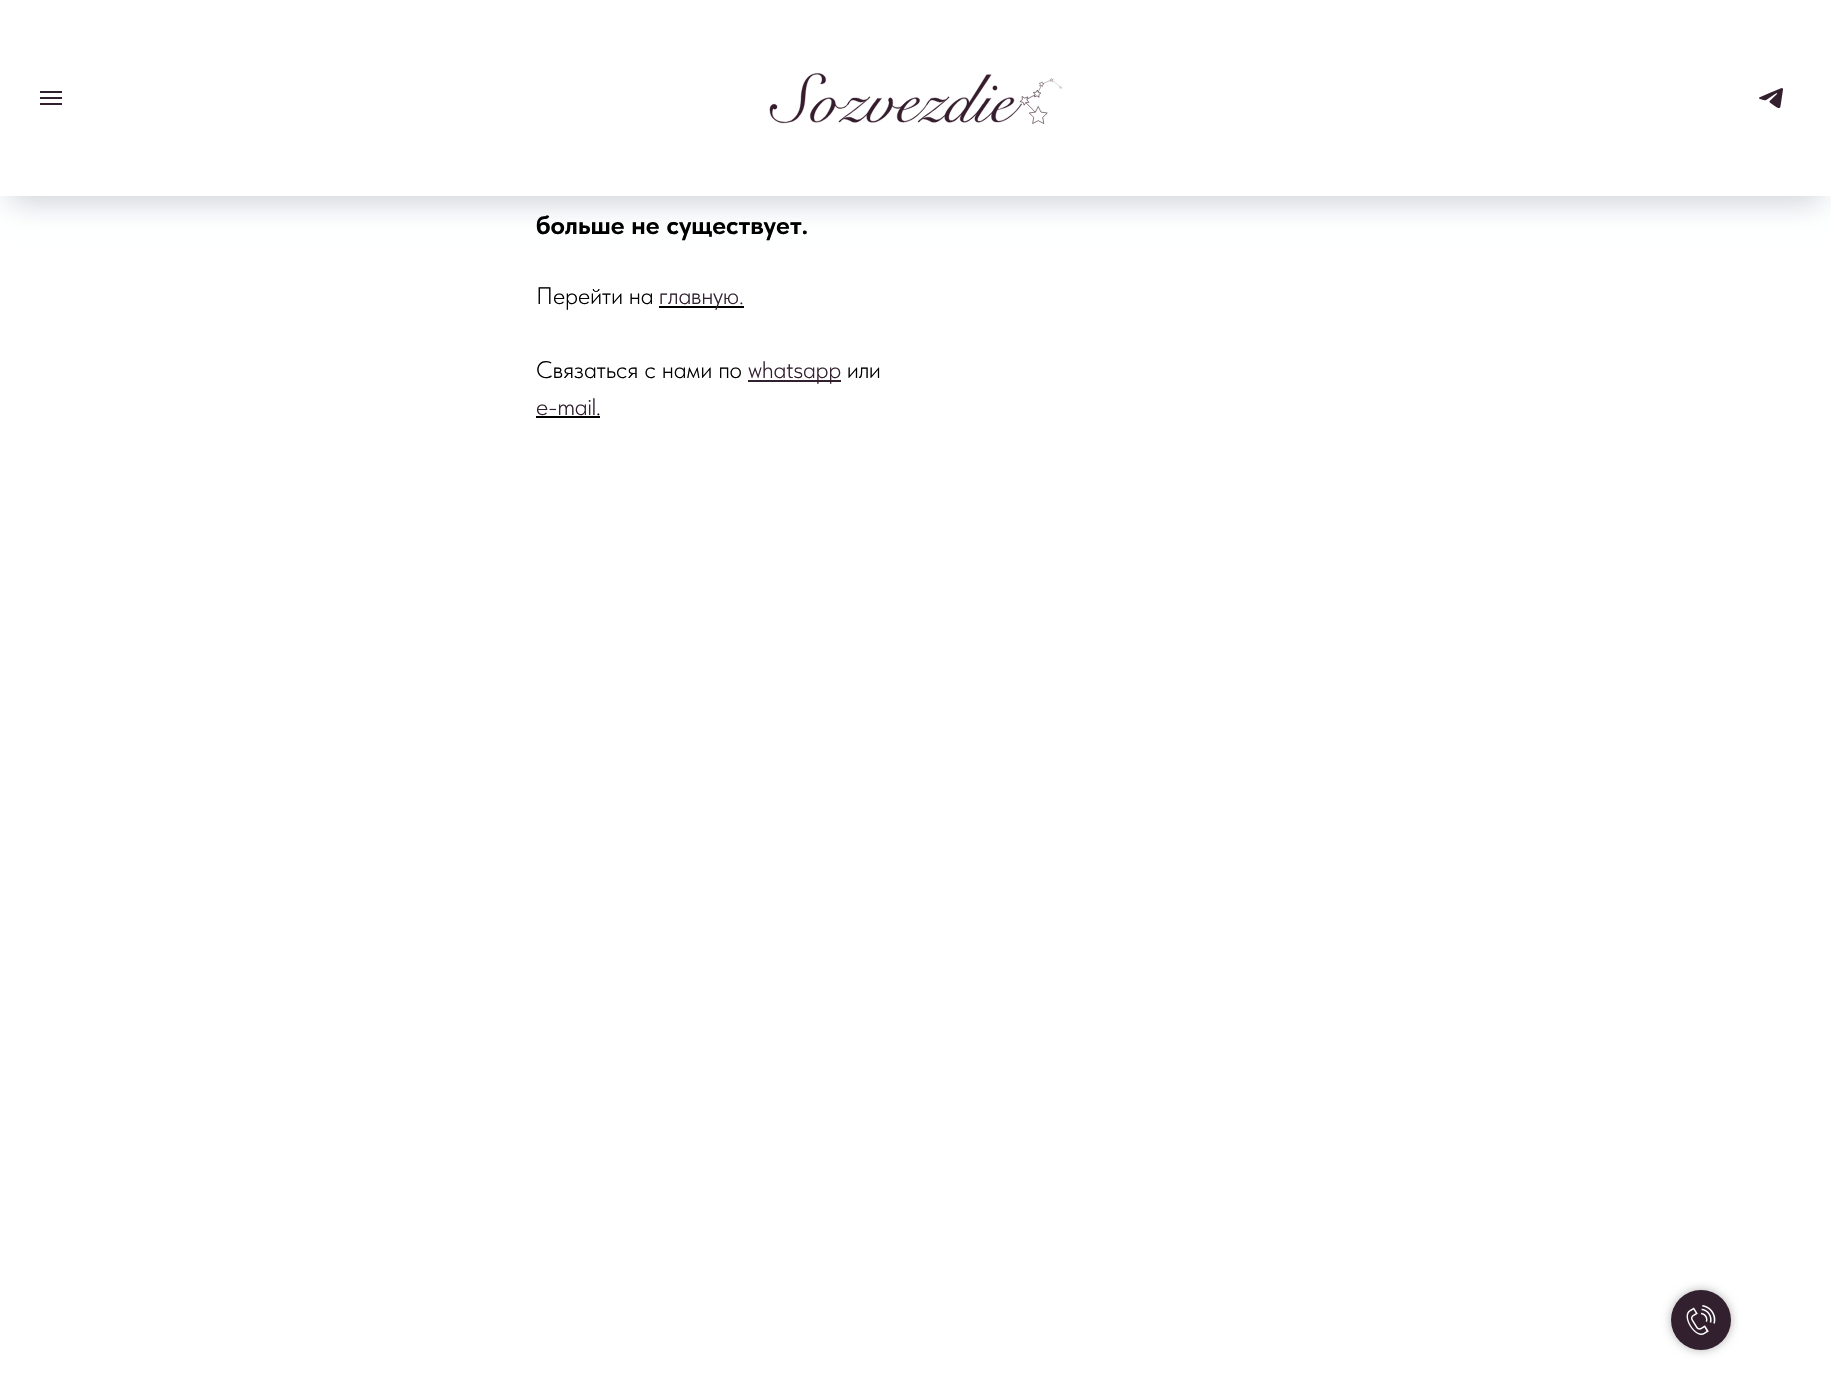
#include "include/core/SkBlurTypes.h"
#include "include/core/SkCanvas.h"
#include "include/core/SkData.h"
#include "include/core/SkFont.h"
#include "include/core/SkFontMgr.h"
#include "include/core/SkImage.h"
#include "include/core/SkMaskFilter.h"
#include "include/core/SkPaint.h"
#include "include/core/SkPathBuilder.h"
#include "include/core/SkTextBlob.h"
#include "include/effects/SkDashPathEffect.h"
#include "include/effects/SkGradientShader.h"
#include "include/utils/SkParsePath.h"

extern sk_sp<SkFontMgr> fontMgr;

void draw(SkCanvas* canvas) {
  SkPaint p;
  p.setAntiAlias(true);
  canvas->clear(SK_ColorWHITE);
  p.setColor(SkColorSetARGB(51, 0, 11, 48));
  p.setMaskFilter(SkMaskFilter::MakeBlur(kNormal_SkBlurStyle, 15));
  canvas->drawRect(SkRect::MakeLTRB(10, 25, 1821, 201), p);
  p.setMaskFilter(nullptr);
  p.setColor(SK_ColorWHITE);
  canvas->drawRect(SkRect::MakeLTRB(0, 0, 1831, 196), p);
  p.setColor(SkColorSetRGB(50, 32, 47));
  canvas->drawRect(SkRect::MakeLTRB(40, 91, 62, 93), p);
  canvas->drawRect(SkRect::MakeLTRB(40, 97, 62, 99), p);
  canvas->drawRect(SkRect::MakeLTRB(40, 103, 62, 105), p);
  canvas->drawImageRect(SkImages::DeferredFromEncodedData(SkData::MakeFromFileName("images/1.png")), SkRect::MakeLTRB(769, 72, 1062, 125), SkSamplingOptions());
  canvas->drawImageRect(SkImages::DeferredFromEncodedData(SkData::MakeFromFileName("images/2.png")), SkRect::MakeLTRB(1759, 88, 1783, 109), SkSamplingOptions());
  p.setColor(SK_ColorBLACK);
  canvas->drawRect(SkRect::MakeLTRB(659, 306, 744, 308), p);
  p.setColor(SkColorSetRGB(50, 32, 47));
  canvas->drawRect(SkRect::MakeLTRB(748, 380, 841, 382), p);
  p.setColor(SK_ColorBLACK);
  canvas->drawRect(SkRect::MakeLTRB(536, 416, 600, 418), p);
  p.setColor(SkColorSetARGB(77, 0, 0, 0));
  p.setMaskFilter(SkMaskFilter::MakeBlur(kNormal_SkBlurStyle, 5));
  canvas->drawRoundRect(SkRect::MakeLTRB(1671, 1290, 1731, 1350), 30, 30, p);
  p.setMaskFilter(nullptr);
  p.setColor(SkColorSetRGB(50, 32, 47));
  canvas->drawCircle(1701, 1320, 30, p);
  canvas->drawImageRect(SkImages::DeferredFromEncodedData(SkData::MakeFromFileName("images/3.png")), SkRect::MakeLTRB(1686, 1305, 1716, 1335), SkSamplingOptions());
  SkFont font1(fontMgr->matchFamilyStyle("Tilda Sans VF", SkFontStyle::Bold()), 26);
  font1.setSubpixel(true);
  p.setColor(SK_ColorBLACK);
  canvas->drawString("больше не существует.", 536, 234, font1, p);
  SkFont font2(fontMgr->matchFamilyStyle("Tilda Sans VF", SkFontStyle(300, SkFontStyle::kNormal_Width, SkFontStyle::kUpright_Slant)), 24);
  font2.setSubpixel(true);
  canvas->drawString("Перейти на", 536, 304, font2, p);
  p.setColor(SkColorSetRGB(50, 32, 47));
  canvas->drawString("главную.", 659, 304, font2, p);
  p.setColor(SK_ColorBLACK);
  canvas->drawString("Связаться с нами по", 536, 378, font2, p);
  p.setColor(SkColorSetRGB(50, 32, 47));
  canvas->drawString("whatsapp", 748, 378, font2, p);
  p.setColor(SK_ColorBLACK);
  canvas->drawString("или", 847, 378, font2, p);
  p.setColor(SkColorSetRGB(50, 32, 47));
  canvas->drawString("e-mail", 536, 415, font2, p);
  p.setColor(SK_ColorBLACK);
  canvas->drawString(".", 596, 415, font2, p);
}
